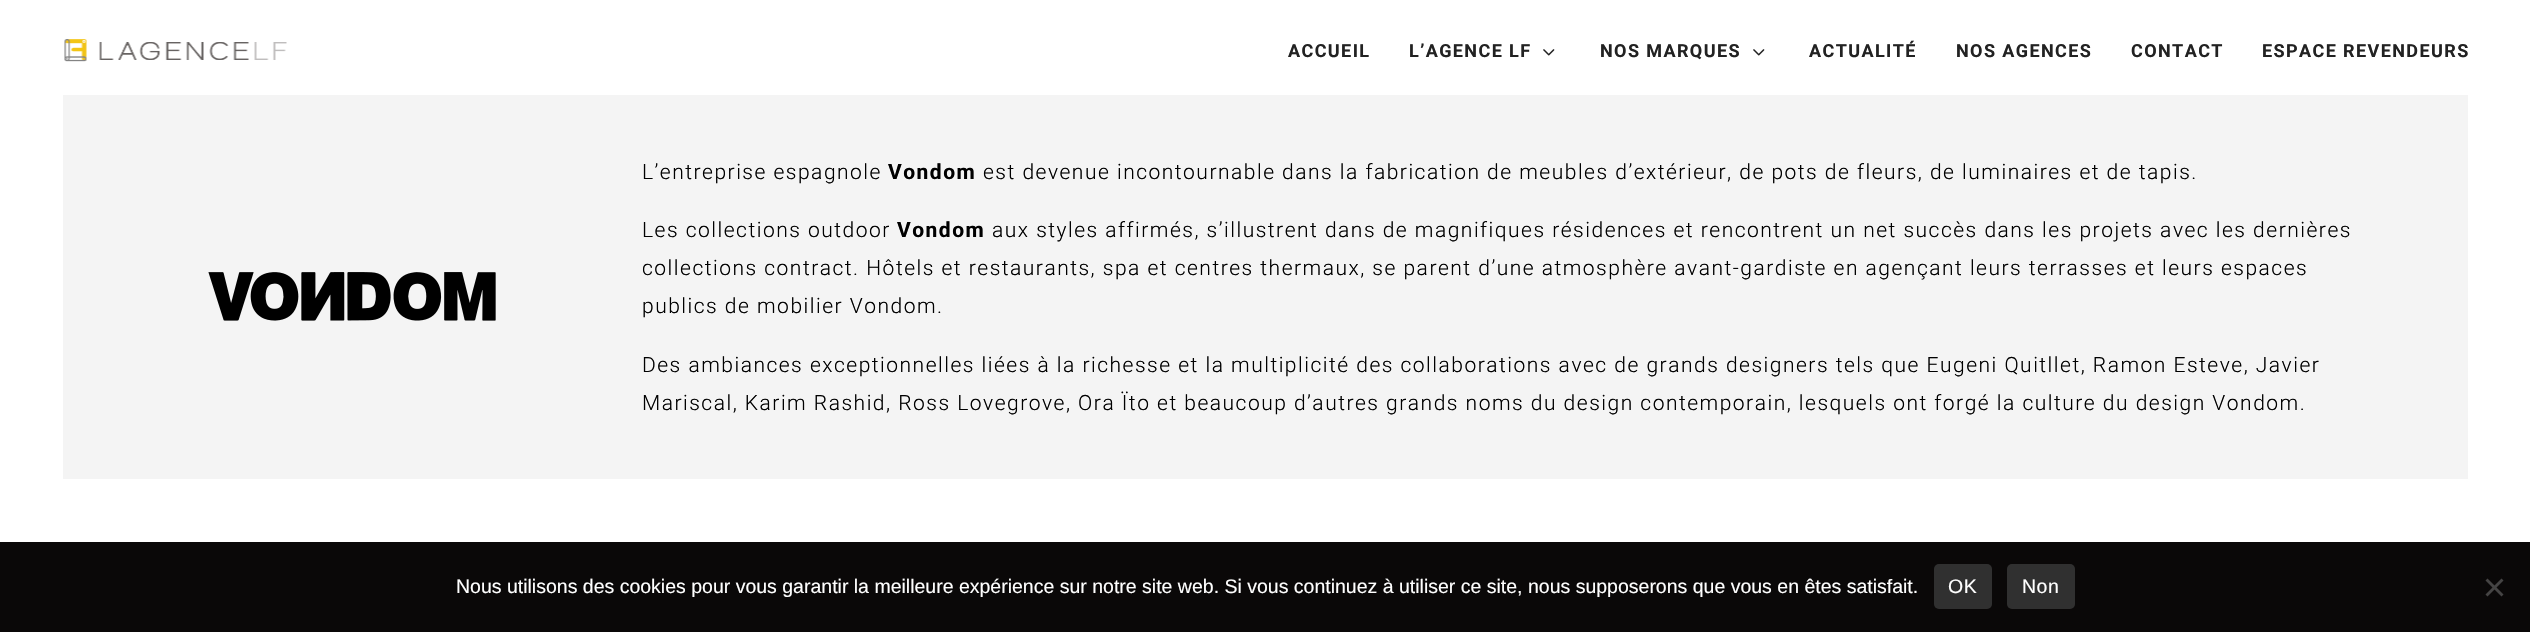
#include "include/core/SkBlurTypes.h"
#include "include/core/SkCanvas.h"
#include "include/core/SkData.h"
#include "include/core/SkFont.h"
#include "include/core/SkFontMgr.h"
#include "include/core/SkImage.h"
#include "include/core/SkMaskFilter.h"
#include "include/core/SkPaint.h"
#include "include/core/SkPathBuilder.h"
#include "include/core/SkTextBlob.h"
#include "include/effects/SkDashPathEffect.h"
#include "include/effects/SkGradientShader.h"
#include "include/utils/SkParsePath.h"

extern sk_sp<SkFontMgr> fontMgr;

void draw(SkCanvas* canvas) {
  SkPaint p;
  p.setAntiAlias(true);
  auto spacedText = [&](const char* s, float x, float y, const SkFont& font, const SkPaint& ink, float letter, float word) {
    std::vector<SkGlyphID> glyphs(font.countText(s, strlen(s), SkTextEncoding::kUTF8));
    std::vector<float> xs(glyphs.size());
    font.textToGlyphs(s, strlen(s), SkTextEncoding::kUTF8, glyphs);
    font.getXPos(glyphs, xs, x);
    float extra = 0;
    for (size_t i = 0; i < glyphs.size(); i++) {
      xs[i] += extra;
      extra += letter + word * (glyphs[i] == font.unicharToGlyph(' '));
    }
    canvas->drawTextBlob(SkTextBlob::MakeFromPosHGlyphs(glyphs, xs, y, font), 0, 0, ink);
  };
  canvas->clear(SK_ColorWHITE);
  canvas->drawImageRect(SkImages::DeferredFromEncodedData(SkData::MakeFromFileName("images/1.png")), SkRect::MakeLTRB(64, 39, 287, 62), SkSamplingOptions());
  canvas->drawImageRect(SkImages::DeferredFromEncodedData(SkData::MakeFromFileName("images/2.png")), SkRect::MakeLTRB(1543, 49, 1555, 56), SkSamplingOptions());
  canvas->drawImageRect(SkImages::DeferredFromEncodedData(SkData::MakeFromFileName("images/2.png")), SkRect::MakeLTRB(1753, 49, 1765, 56), SkSamplingOptions());
  p.setColor(SkColorSetRGB(244, 244, 244));
  canvas->drawRect(SkRect::MakeLTRB(63, 95, 2468, 479), p);
  canvas->drawImageRect(SkImages::DeferredFromEncodedData(SkData::MakeFromFileName("images/3.png")), SkRect::MakeLTRB(208, 272, 496, 321), SkSamplingOptions());
  p.setColor(SkColorSetRGB(10, 8, 8));
  canvas->drawRect(SkRect::MakeLTRB(0, 542, 2530, 632), p);
  p.setColor(SkColorSetRGB(48, 48, 48));
  canvas->drawRoundRect(SkRect::MakeLTRB(1934, 564, 1992, 609), 5, 5, p);
  canvas->drawRoundRect(SkRect::MakeLTRB(2007, 564, 2075, 609), 5, 5, p);
  p.setColor(SkColorSetRGB(69, 68, 68));
  canvas->drawPath(SkPathBuilder().moveTo(2501.5f, 578.5f).lineTo(2503.5f, 580.5f).lineTo(2487.5f, 596.5f).lineTo(2485.5f, 594.5f).close().detach(), p);
  canvas->drawPath(SkPathBuilder().moveTo(2485.5f, 580.5f).lineTo(2487.5f, 578.5f).lineTo(2503.5f, 594.5f).lineTo(2501.5f, 596.5f).close().detach(), p);
  SkFont font1(fontMgr->matchFamilyStyle("Roboto", SkFontStyle::Bold()), 18);
  font1.setSubpixel(true);
  p.setColor(SkColorSetRGB(34, 34, 34));
  spacedText("ACCUEIL", 1288, 57, font1, p, 1.4f, 0);
  spacedText("L’AGENCE LF", 1409, 57, font1, p, 1.4f, 0);
  spacedText("NOS MARQUES", 1600, 57, font1, p, 1.4f, 0);
  spacedText("ACTUALITÉ", 1809, 57, font1, p, 1.4f, 0);
  spacedText("NOS AGENCES", 1956, 57, font1, p, 1.4f, 0);
  spacedText("CONTACT", 2131, 57, font1, p, 1.4f, 0);
  spacedText("ESPACE REVENDEURS", 2262, 57, font1, p, 1.4f, 0);
  SkFont font2(fontMgr->matchFamilyStyle("Roboto", SkFontStyle(300, SkFontStyle::kNormal_Width, SkFontStyle::kUpright_Slant)), 21);
  font2.setSubpixel(true);
  p.setColor(SK_ColorBLACK);
  spacedText("L’entreprise espagnole", 642, 179, font2, p, 1.5f, 0);
  SkFont font3(fontMgr->matchFamilyStyle("Roboto", SkFontStyle::Bold()), 21);
  font3.setSubpixel(true);
  spacedText("Vondom", 888, 179, font3, p, 1.5f, 0);
  spacedText("est devenue incontournable dans la fabrication de meubles d’extérieur, de pots de fleurs, de luminaires et de tapis.", 983, 179, font2, p, 1.5f, 0);
  spacedText("Les collections outdoor", 642, 237, font2, p, 1.5f, 0);
  spacedText("Vondom", 897, 237, font3, p, 1.5f, 0);
  spacedText("aux styles affirmés, s’illustrent dans de magnifiques résidences et rencontrent un net succès dans les projets avec les dernières", 992, 237, font2, p, 1.5f, 0);
  spacedText("collections contract. Hôtels et restaurants, spa et centres thermaux, se parent d’une atmosphère avant-gardiste en agençant leurs terrasses et leurs espaces", 642, 275, font2, p, 1.5f, 0);
  spacedText("publics de mobilier Vondom.", 642, 313, font2, p, 1.5f, 0);
  spacedText("Des ambiances exceptionnelles liées à la richesse et la multiplicité des collaborations avec de grands designers tels que Eugeni Quitllet, Ramon Esteve, Javier", 642, 372, font2, p, 1.5f, 0);
  spacedText("Mariscal, Karim Rashid, Ross Lovegrove, Ora Ïto et beaucoup d’autres grands noms du design contemporain, lesquels ont forgé la culture du design Vondom.", 642, 410, font2, p, 1.5f, 0);
  SkFont font4(fontMgr->matchFamilyStyle("Liberation Sans", SkFontStyle::Normal()), 19.5f);
  font4.setSubpixel(true);
  p.setColor(SK_ColorWHITE);
  canvas->drawString("Nous utilisons des cookies pour vous garantir la meilleure expérience sur notre site web. Si vous continuez à utiliser ce site, nous supposerons que vous en êtes satisfait.", 456, 593, font4, p);
  spacedText("OK", 1948, 593, font4, p, 0.5f, 0);
  spacedText("Non", 2022, 593, font4, p, 0.5f, 0);
}
